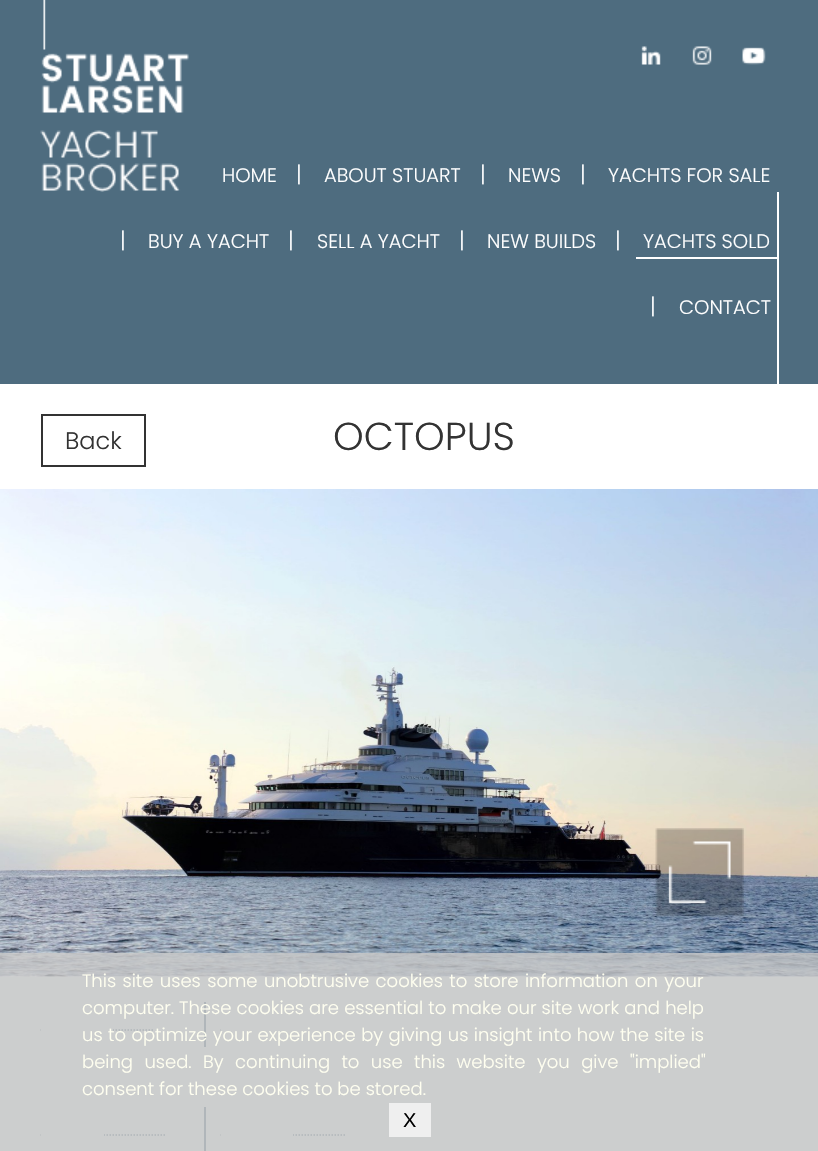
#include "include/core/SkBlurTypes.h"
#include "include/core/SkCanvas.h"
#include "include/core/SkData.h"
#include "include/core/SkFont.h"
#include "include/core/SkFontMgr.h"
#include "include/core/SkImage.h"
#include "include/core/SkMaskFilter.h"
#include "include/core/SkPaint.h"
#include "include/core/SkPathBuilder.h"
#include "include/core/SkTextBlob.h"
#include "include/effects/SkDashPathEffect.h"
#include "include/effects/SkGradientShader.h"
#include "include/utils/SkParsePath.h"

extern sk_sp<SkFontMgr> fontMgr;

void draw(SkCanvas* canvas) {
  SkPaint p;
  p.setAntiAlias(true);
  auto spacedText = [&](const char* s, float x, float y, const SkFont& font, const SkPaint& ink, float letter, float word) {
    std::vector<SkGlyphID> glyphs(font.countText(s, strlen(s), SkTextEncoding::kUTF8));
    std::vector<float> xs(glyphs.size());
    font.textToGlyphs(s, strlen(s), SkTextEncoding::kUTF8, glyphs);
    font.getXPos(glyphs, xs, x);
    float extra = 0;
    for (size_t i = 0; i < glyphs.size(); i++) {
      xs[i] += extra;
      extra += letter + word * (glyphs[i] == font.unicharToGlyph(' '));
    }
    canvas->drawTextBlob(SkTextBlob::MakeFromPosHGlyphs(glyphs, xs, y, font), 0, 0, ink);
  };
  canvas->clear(SK_ColorWHITE);
  p.setColor(SkColorSetRGB(78, 108, 127));
  canvas->drawRect(SkRect::MakeLTRB(0, 0, 818, 384), p);
  canvas->drawImageRect(SkImages::DeferredFromEncodedData(SkData::MakeFromFileName("images/1.png")), SkRect::MakeLTRB(40, 0, 189, 192), SkSamplingOptions());
  canvas->drawImageRect(SkImages::DeferredFromEncodedData(SkData::MakeFromFileName("images/2.png")), SkRect::MakeLTRB(641, 46, 661, 65), SkSamplingOptions());
  canvas->drawImageRect(SkImages::DeferredFromEncodedData(SkData::MakeFromFileName("images/3.png")), SkRect::MakeLTRB(692, 46, 712, 65), SkSamplingOptions());
  canvas->drawImageRect(SkImages::DeferredFromEncodedData(SkData::MakeFromFileName("images/4.png")), SkRect::MakeLTRB(742, 47, 766, 65), SkSamplingOptions());
  p.setColor(SK_ColorWHITE);
  canvas->drawRect(SkRect::MakeLTRB(777, 192, 779, 384), p);
  canvas->drawRect(SkRect::MakeLTRB(636, 257, 779, 259), p);
  p.setStyle(SkPaint::kStroke_Style);
  p.setStrokeWidth(2);
  p.setColor(SkColorSetRGB(51, 51, 51));
  canvas->drawRect(SkRect::MakeLTRB(42, 415, 145, 466), p);
  canvas->drawImageRect(SkImages::DeferredFromEncodedData(SkData::MakeFromFileName("images/5.png")), SkRect::MakeLTRB(0, 489, 818, 977), SkSamplingOptions());
  canvas->drawImageRect(SkImages::DeferredFromEncodedData(SkData::MakeFromFileName("images/6.png")), SkRect::MakeLTRB(655, 828, 744, 917), SkSamplingOptions());
  p.setStyle(SkPaint::kFill_Style);
  p.setColor(SkColorSetRGB(220, 226, 229));
  canvas->drawRect(SkRect::MakeLTRB(0, 977, 818, 1151), p);
  p.setColor(SkColorSetRGB(78, 108, 127));
  canvas->drawRect(SkRect::MakeLTRB(204, 1002, 206, 1047), p);
  p.setStyle(SkPaint::kStroke_Style);
  p.setStrokeWidth(1.5f);
  p.setPathEffect(SkDashPathEffect::Make({{1.5f, 1.5f}}, 0));
  canvas->drawPath(SkPathBuilder().moveTo(40.5f, 1030).lineTo(189, 1030).detach(), p);
  p.setPathEffect(nullptr);
  p.setStyle(SkPaint::kFill_Style);
  p.setColor(SkColorSetRGB(220, 226, 229));
  canvas->drawRect(SkRect::MakeLTRB(41, 1029, 113, 1031), p);
  canvas->drawRect(SkRect::MakeLTRB(154, 1029, 189, 1031), p);
  p.setStyle(SkPaint::kStroke_Style);
  p.setColor(SkColorSetRGB(78, 108, 127));
  p.setPathEffect(SkDashPathEffect::Make({{1.5f, 1.5f}}, 0));
  canvas->drawPath(SkPathBuilder().moveTo(220.5f, 1030).lineTo(369, 1030).detach(), p);
  p.setPathEffect(nullptr);
  p.setStyle(SkPaint::kFill_Style);
  p.setColor(SkColorSetRGB(220, 226, 229));
  canvas->drawRect(SkRect::MakeLTRB(221, 1029, 369, 1031), p);
  p.setColor(SkColorSetRGB(78, 108, 127));
  canvas->drawRect(SkRect::MakeLTRB(204, 1107, 206, 1151), p);
  p.setStyle(SkPaint::kStroke_Style);
  p.setPathEffect(SkDashPathEffect::Make({{1.5f, 1.5f}}, 0));
  canvas->drawPath(SkPathBuilder().moveTo(40.5f, 1135).lineTo(189, 1135).detach(), p);
  p.setPathEffect(nullptr);
  p.setStyle(SkPaint::kFill_Style);
  p.setColor(SkColorSetRGB(220, 226, 229));
  canvas->drawRect(SkRect::MakeLTRB(41, 1134, 104, 1136), p);
  canvas->drawRect(SkRect::MakeLTRB(166, 1134, 189, 1136), p);
  p.setStyle(SkPaint::kStroke_Style);
  p.setColor(SkColorSetRGB(78, 108, 127));
  p.setPathEffect(SkDashPathEffect::Make({{1.5f, 1.5f}}, 0));
  canvas->drawPath(SkPathBuilder().moveTo(220.5f, 1135).lineTo(369, 1135).detach(), p);
  p.setPathEffect(nullptr);
  p.setStyle(SkPaint::kFill_Style);
  p.setColor(SkColorSetRGB(220, 226, 229));
  canvas->drawRect(SkRect::MakeLTRB(221, 1134, 293, 1136), p);
  canvas->drawRect(SkRect::MakeLTRB(346, 1134, 369, 1136), p);
  p.setColor(SkColorSetARGB(204, 200, 200, 200));
  canvas->drawRect(SkRect::MakeLTRB(0, 953, 818, 1151), p);
  p.setColor(SkColorSetRGB(239, 239, 239));
  canvas->drawRect(SkRect::MakeLTRB(389, 1103, 431, 1137), p);
  SkFont font1(fontMgr->matchFamilyStyle("Poppins", SkFontStyle(300, SkFontStyle::kNormal_Width, SkFontStyle::kUpright_Slant)), 19.5f);
  font1.setSubpixel(true);
  p.setColor(SK_ColorWHITE);
  canvas->drawString("HOME", 222, 182, font1, p);
  SkFont font2(fontMgr->matchFamilyStyle("Poppins", SkFontStyle(300, SkFontStyle::kNormal_Width, SkFontStyle::kUpright_Slant)), 22);
  font2.setSubpixel(true);
  canvas->drawString("|", 296, 182, font2, p);
  canvas->drawString("ABOUT STUART", 324, 182, font1, p);
  canvas->drawString("|", 480, 182, font2, p);
  canvas->drawString("NEWS", 508, 182, font1, p);
  canvas->drawString("|", 580, 182, font2, p);
  canvas->drawString("YACHTS FOR SALE", 608, 182, font1, p);
  canvas->drawString("|", 120, 248, font2, p);
  canvas->drawString("BUY A YACHT", 148, 248, font1, p);
  canvas->drawString("|", 288, 248, font2, p);
  canvas->drawString("SELL A YACHT", 317, 248, font1, p);
  canvas->drawString("|", 459, 248, font2, p);
  canvas->drawString("NEW BUILDS", 487, 248, font1, p);
  canvas->drawString("|", 615, 248, font2, p);
  canvas->drawString("YACHTS SOLD", 643, 248, font1, p);
  canvas->drawString("|", 650, 314, font2, p);
  canvas->drawString("CONTACT", 679, 314, font1, p);
  SkFont font3(fontMgr->matchFamilyStyle("Poppins", SkFontStyle(300, SkFontStyle::kNormal_Width, SkFontStyle::kUpright_Slant)), 24);
  font3.setSubpixel(true);
  p.setColor(SkColorSetRGB(51, 51, 51));
  canvas->drawString("Back", 65, 449, font3, p);
  SkFont font4(fontMgr->matchFamilyStyle("Poppins", SkFontStyle(300, SkFontStyle::kNormal_Width, SkFontStyle::kUpright_Slant)), 39);
  font4.setSubpixel(true);
  canvas->drawString("OCTOPUS", 333, 450, font4, p);
  SkFont font5(fontMgr->matchFamilyStyle("Poppins", SkFontStyle(300, SkFontStyle::kNormal_Width, SkFontStyle::kUpright_Slant)), 18);
  font5.setSubpixel(true);
  p.setColor(SkColorSetRGB(255, 255, 240));
  spacedText("This site uses some unobtrusive cookies to store information on your", 82, 987, font5, p, 0, 1.5f);
  spacedText("computer. These cookies are essential to make our site work and help", 82, 1014, font5, p, 0, 0.25f);
  spacedText("us to optimize your experience by giving us insight into how the site is", 82, 1041, font5, p, 0, 0.5f);
  spacedText("being used. By continuing to use this website you give \"implied\"", 82, 1068, font5, p, 0, 6.5f);
  canvas->drawString("consent for these cookies to be stored.", 82, 1095, font5, p);
  SkFont font6(fontMgr->matchFamilyStyle("Liberation Sans", SkFontStyle::Normal()), 20);
  font6.setSubpixel(true);
  p.setColor(SK_ColorBLACK);
  canvas->drawString("X", 403, 1127, font6, p);
}
